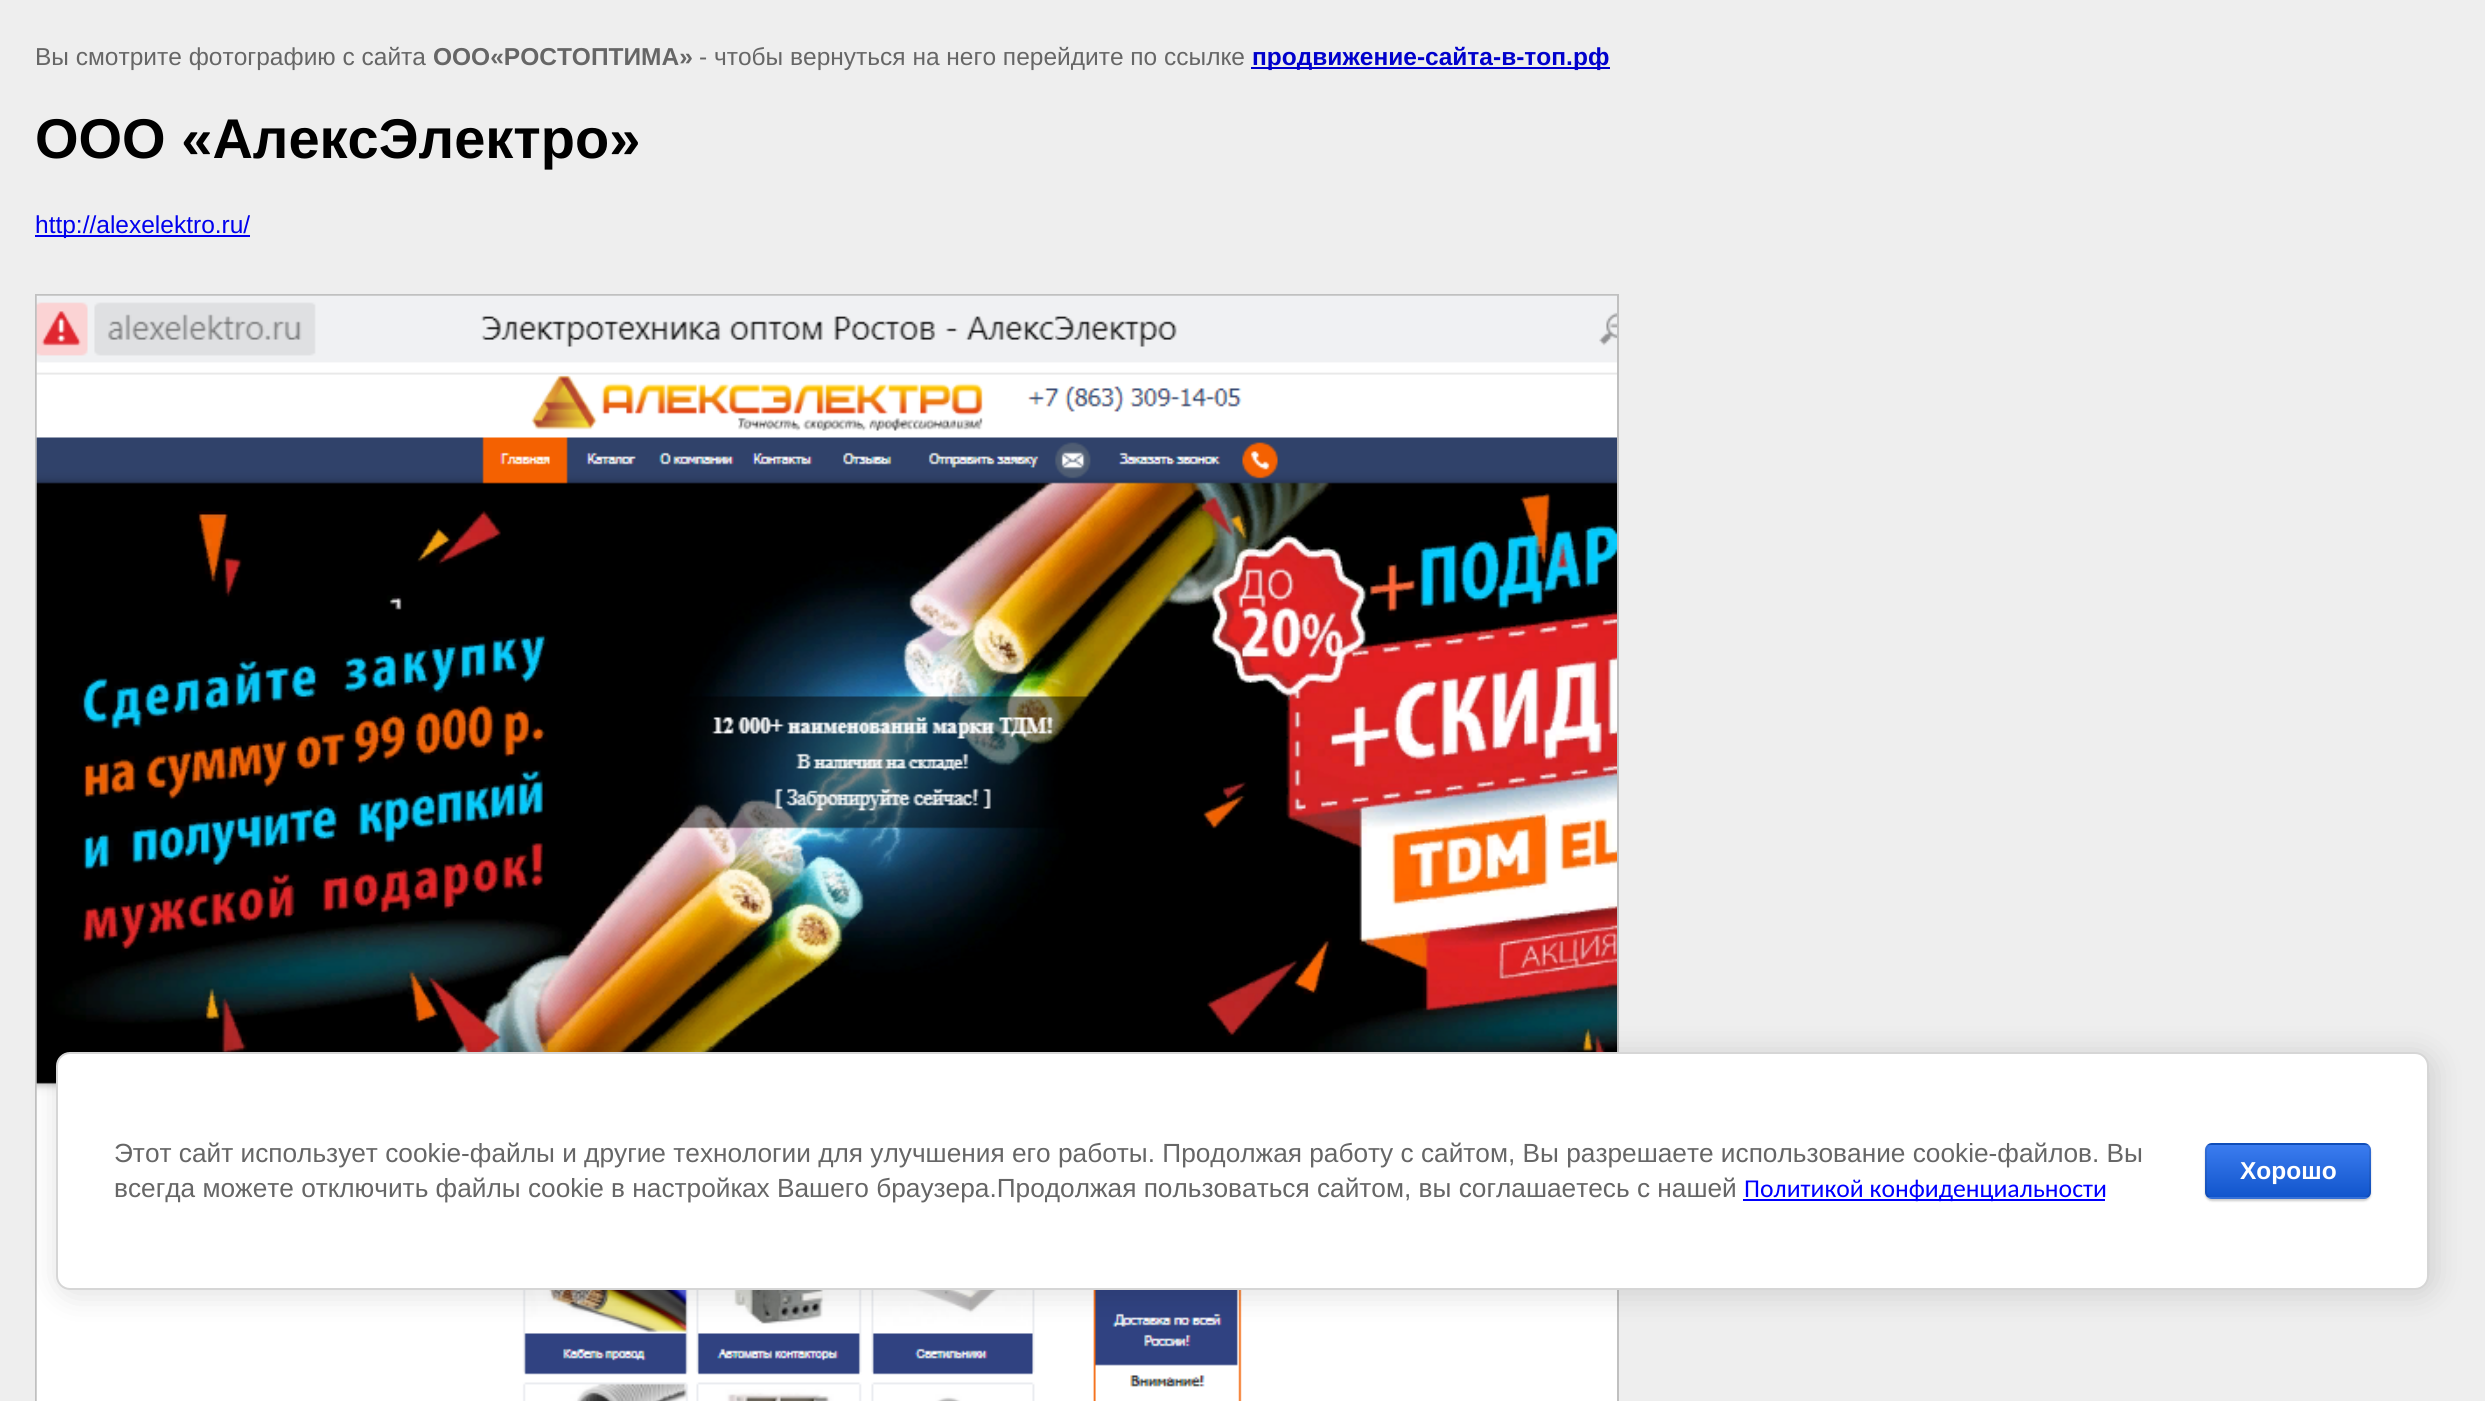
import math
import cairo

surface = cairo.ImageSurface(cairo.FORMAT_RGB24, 2485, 1401)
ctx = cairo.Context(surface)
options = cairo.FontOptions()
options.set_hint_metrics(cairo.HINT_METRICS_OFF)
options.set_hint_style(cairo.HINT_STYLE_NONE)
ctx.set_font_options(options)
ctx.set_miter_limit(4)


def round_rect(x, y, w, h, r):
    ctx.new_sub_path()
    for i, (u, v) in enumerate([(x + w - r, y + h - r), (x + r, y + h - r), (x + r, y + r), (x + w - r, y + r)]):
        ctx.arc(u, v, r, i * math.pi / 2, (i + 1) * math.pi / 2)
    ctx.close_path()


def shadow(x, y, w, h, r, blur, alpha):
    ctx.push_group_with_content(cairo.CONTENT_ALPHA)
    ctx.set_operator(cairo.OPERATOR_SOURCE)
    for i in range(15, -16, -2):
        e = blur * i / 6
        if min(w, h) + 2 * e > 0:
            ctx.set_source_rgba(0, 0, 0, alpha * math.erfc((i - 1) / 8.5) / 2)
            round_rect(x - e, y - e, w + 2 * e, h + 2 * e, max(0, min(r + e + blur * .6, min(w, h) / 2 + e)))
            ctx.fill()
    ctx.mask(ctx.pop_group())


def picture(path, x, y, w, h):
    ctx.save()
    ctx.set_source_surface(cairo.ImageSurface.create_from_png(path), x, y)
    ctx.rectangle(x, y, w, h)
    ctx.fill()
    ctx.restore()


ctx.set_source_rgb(0.933, 0.933, 0.933)
ctx.paint()
ctx.select_font_face("Liberation Sans")
ctx.set_font_size(24.5)
ctx.set_source_rgb(0.4, 0.4, 0.4)
ctx.move_to(35, 65)
ctx.show_text("Вы смотрите фотографию с сайта")
ctx.select_font_face("Liberation Sans", cairo.FONT_SLANT_NORMAL, cairo.FONT_WEIGHT_BOLD)
ctx.move_to(433, 65)
ctx.show_text("ООО«РОСТОПТИМА»")
ctx.select_font_face("Liberation Sans")
ctx.move_to(699, 65)
ctx.show_text("- чтобы вернуться на него перейдите по ссылке")
ctx.set_source_rgb(0, 0, 0.8)
ctx.rectangle(1251, 67, 359, 2)
ctx.fill()
ctx.select_font_face("Liberation Sans", cairo.FONT_SLANT_NORMAL, cairo.FONT_WEIGHT_BOLD)
ctx.move_to(1252, 65)
ctx.show_text("продвижение-сайта-в-топ.рф")
ctx.set_font_size(56)
ctx.set_source_rgb(0, 0, 0)
ctx.move_to(35, 158)
ctx.show_text("ООО «АлексЭлектро»")
ctx.set_source_rgb(0, 0, 0.933)
ctx.rectangle(35, 235, 215, 2)
ctx.fill()
ctx.select_font_face("Liberation Sans")
ctx.set_font_size(24.5)
ctx.move_to(35, 233)
ctx.show_text("http://alexelektro.ru/")
ctx.rectangle(36, 295, 1582, 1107)
ctx.set_source_rgb(0.753, 0.753, 0.753)
ctx.stroke()
picture("img1.png", 36, 295, 1581, 1106)
ctx.set_source_rgb(0, 0, 0)
shadow(60, 1055, 2373, 238, 14, 16, 0.14)
ctx.set_source_rgb(1, 1, 1)
round_rect(57, 1053, 2371, 236, 13)
ctx.fill_preserve()
ctx.set_source_rgb(0.839, 0.839, 0.839)
ctx.stroke()
ctx.set_font_size(26.25)
ctx.set_source_rgb(0.4, 0.4, 0.4)
ctx.move_to(114, 1162)
ctx.show_text("Этот сайт использует cookie-файлы и другие технологии для улучшения его работы. Продолжая работу с сайтом, Вы разрешаете использование cookie-файлов. Вы")
ctx.move_to(114, 1197)
ctx.show_text("всегда можете отключить файлы cookie в настройках Вашего браузера.Продолжая пользоваться сайтом, вы соглашаетесь с нашей")
ctx.set_source_rgb(0, 0, 1)
ctx.rectangle(1743, 1199, 362, 2)
ctx.fill()
ctx.select_font_face("Carlito")
ctx.set_font_size(25.7)
ctx.move_to(1744, 1197)
ctx.show_text("Политикой конфиденциальности")
ctx.set_source_rgb(0, 0, 0)
shadow(2205, 1145, 166, 56, 7, 1, 0.2)
ctx.save()
round_rect(2205, 1143, 166, 56, 7)
ctx.clip()
gradient = cairo.LinearGradient(2288, 1092, 2288, 1145)
gradient.add_color_stop_rgba(0, 0.231, 0.486, 0.937, 1)
gradient.add_color_stop_rgba(1, 0.067, 0.333, 0.8, 1)
ctx.set_source(gradient)
ctx.rectangle(2205, 1143, 166, 2)
ctx.fill()
gradient = cairo.LinearGradient(2288, 1145, 2288, 1197)
gradient.add_color_stop_rgba(0, 0.231, 0.486, 0.937, 1)
gradient.add_color_stop_rgba(1, 0.067, 0.333, 0.8, 1)
ctx.set_source(gradient)
ctx.rectangle(2205, 1145, 166, 52)
ctx.fill()
gradient = cairo.LinearGradient(2288, 1197, 2288, 1250)
gradient.add_color_stop_rgba(0, 0.231, 0.486, 0.937, 1)
gradient.add_color_stop_rgba(1, 0.067, 0.333, 0.8, 1)
ctx.set_source(gradient)
ctx.rectangle(2205, 1197, 166, 2)
ctx.fill()
ctx.restore()
round_rect(2206, 1144, 164, 54, 6)
ctx.set_source_rgba(0, 0, 0, 0.1)
ctx.stroke()
ctx.select_font_face("Liberation Sans", cairo.FONT_SLANT_NORMAL, cairo.FONT_WEIGHT_BOLD)
ctx.set_font_size(24.5)
ctx.set_source_rgb(1, 1, 1)
ctx.move_to(2240, 1179)
ctx.show_text("Хорошо")
surface.write_to_png("page.png")
